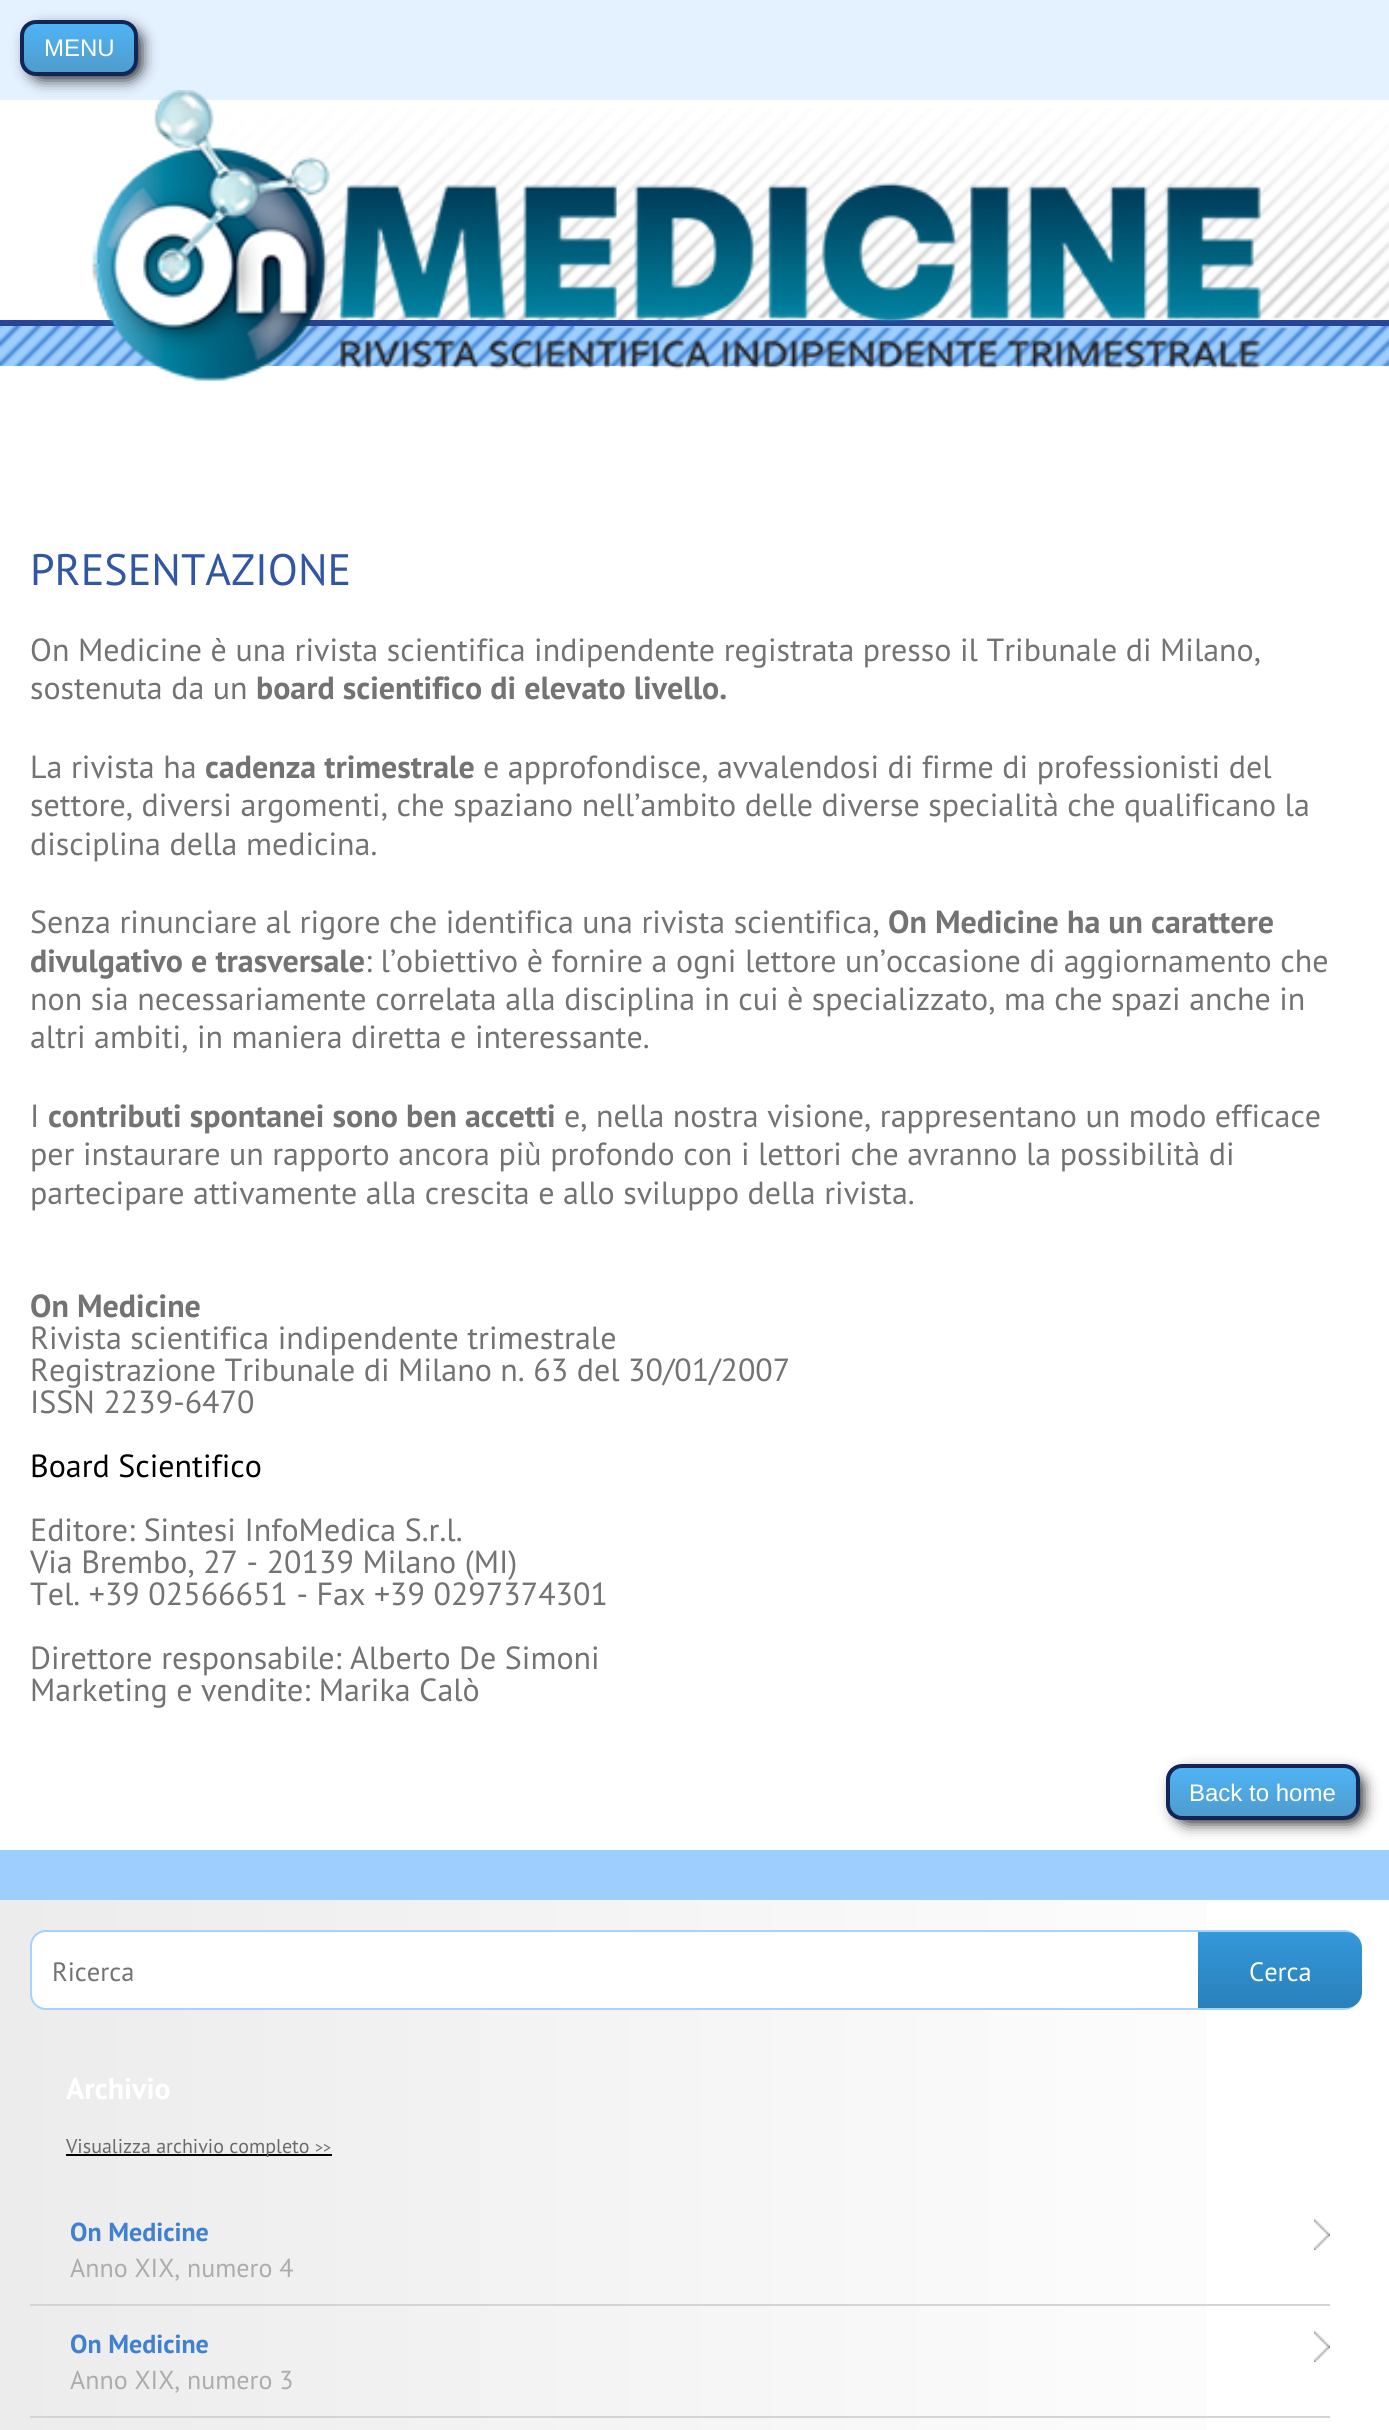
import math
import cairo

surface = cairo.ImageSurface(cairo.FORMAT_RGB24, 1389, 2430)
ctx = cairo.Context(surface)
options = cairo.FontOptions()
options.set_hint_metrics(cairo.HINT_METRICS_OFF)
options.set_hint_style(cairo.HINT_STYLE_NONE)
ctx.set_font_options(options)
ctx.set_miter_limit(4)


def round_rect(x, y, w, h, r):
    ctx.new_sub_path()
    for i, (u, v) in enumerate([(x + w - r, y + h - r), (x + r, y + h - r), (x + r, y + r), (x + w - r, y + r)]):
        ctx.arc(u, v, r, i * math.pi / 2, (i + 1) * math.pi / 2)
    ctx.close_path()


def shadow(x, y, w, h, r, blur, alpha):
    ctx.push_group_with_content(cairo.CONTENT_ALPHA)
    ctx.set_operator(cairo.OPERATOR_SOURCE)
    for i in range(15, -16, -2):
        e = blur * i / 6
        if min(w, h) + 2 * e > 0:
            ctx.set_source_rgba(0, 0, 0, alpha * math.erfc((i - 1) / 8.5) / 2)
            round_rect(x - e, y - e, w + 2 * e, h + 2 * e, max(0, min(r + e + blur * .6, min(w, h) / 2 + e)))
            ctx.fill()
    ctx.mask(ctx.pop_group())


def picture(path, x, y, w, h):
    ctx.save()
    ctx.set_source_surface(cairo.ImageSurface.create_from_png(path), x, y)
    ctx.rectangle(x, y, w, h)
    ctx.fill()
    ctx.restore()


ctx.set_source_rgb(1, 1, 1)
ctx.paint()
picture("img1.png", 213, 108, 1176, 212)
ctx.set_source_rgb(0.894, 0.945, 1)
ctx.rectangle(0, 0, 1389, 100)
ctx.fill()
ctx.set_source_rgb(0, 0, 0)
shadow(30, 30, 110, 48, 12, 8, 1)
ctx.save()
round_rect(20, 20, 118, 56, 16)
ctx.clip()
gradient = cairo.LinearGradient(79, 24, 79, 72)
gradient.add_color_stop_rgba(0, 0.31, 0.702, 0.961, 1)
gradient.add_color_stop_rgba(1, 0.31, 0.612, 0.8, 1)
ctx.set_source(gradient)
ctx.rectangle(20, 24, 118, 48)
ctx.fill()
ctx.restore()
round_rect(22, 22, 114, 52, 14)
ctx.set_source_rgb(0.071, 0.145, 0.337)
ctx.set_line_width(4)
ctx.stroke()
ctx.select_font_face("Liberation Sans")
ctx.set_font_size(24)
ctx.set_source_rgb(1, 1, 1)
ctx.move_to(44, 56)
ctx.show_text("MENU")
ctx.set_source_rgb(0.149, 0.267, 0.6)
ctx.rectangle(0, 320, 1389, 6)
ctx.fill()
ctx.set_source_rgb(0.616, 0.808, 0.996)
ctx.rectangle(0, 326, 1389, 1574)
ctx.fill()
picture("img3.png", 0, 326, 1389, 40)
ctx.set_source_rgb(1, 1, 1)
ctx.rectangle(0, 366, 1389, 1484)
ctx.fill()
picture("img2.png", 92, 90, 1169, 292)
ctx.select_font_face("PT Sans")
ctx.set_font_size(44)
ctx.set_source_rgb(0.196, 0.337, 0.651)
ctx.move_to(30, 585)
ctx.show_text("PRESENTAZIONE")
ctx.set_font_size(32)
ctx.set_source_rgb(0.451, 0.451, 0.451)
ctx.move_to(30, 661)
ctx.show_text("On Medicine è una rivista scientifica indipendente registrata presso il Tribunale di Milano,")
ctx.move_to(30, 699)
ctx.show_text("sostenuta da un")
ctx.select_font_face("PT Sans", cairo.FONT_SLANT_NORMAL, cairo.FONT_WEIGHT_BOLD)
ctx.move_to(256, 699)
ctx.show_text("board scientifico di elevato livello.")
ctx.select_font_face("PT Sans")
ctx.move_to(30, 778)
ctx.show_text("La rivista ha")
ctx.select_font_face("PT Sans", cairo.FONT_SLANT_NORMAL, cairo.FONT_WEIGHT_BOLD)
ctx.move_to(205, 778)
ctx.show_text("cadenza trimestrale")
ctx.select_font_face("PT Sans")
ctx.move_to(483, 778)
ctx.show_text("e approfondisce, avvalendosi di firme di professionisti del")
ctx.move_to(30, 816)
ctx.show_text("settore, diversi argomenti, che spaziano nell’ambito delle diverse specialità che qualificano la")
ctx.move_to(30, 855)
ctx.show_text("disciplina della medicina.")
ctx.move_to(30, 933)
ctx.show_text("Senza rinunciare al rigore che identifica una rivista scientifica,")
ctx.select_font_face("PT Sans", cairo.FONT_SLANT_NORMAL, cairo.FONT_WEIGHT_BOLD)
ctx.move_to(888, 933)
ctx.show_text("On Medicine ha un carattere")
ctx.move_to(30, 972)
ctx.show_text("divulgativo e trasversale")
ctx.select_font_face("PT Sans")
ctx.move_to(365, 972)
ctx.show_text(": l’obiettivo è fornire a ogni lettore un’occasione di aggiornamento che")
ctx.move_to(30, 1010)
ctx.show_text("non sia necessariamente correlata alla disciplina in cui è specializzato, ma che spazi anche in")
ctx.move_to(30, 1048)
ctx.show_text("altri ambiti, in maniera diretta e interessante.")
ctx.move_to(30, 1127)
ctx.show_text("I")
ctx.select_font_face("PT Sans", cairo.FONT_SLANT_NORMAL, cairo.FONT_WEIGHT_BOLD)
ctx.move_to(48, 1127)
ctx.show_text("contributi spontanei sono ben accetti")
ctx.select_font_face("PT Sans")
ctx.move_to(564, 1127)
ctx.show_text("e, nella nostra visione, rappresentano un modo efficace")
ctx.move_to(30, 1165)
ctx.show_text("per instaurare un rapporto ancora più profondo con i lettori che avranno la possibilità di")
ctx.move_to(30, 1204)
ctx.show_text("partecipare attivamente alla crescita e allo sviluppo della rivista.")
ctx.select_font_face("PT Sans", cairo.FONT_SLANT_NORMAL, cairo.FONT_WEIGHT_BOLD)
ctx.move_to(30, 1317)
ctx.show_text("On Medicine")
ctx.select_font_face("PT Sans")
ctx.move_to(30, 1349)
ctx.show_text("Rivista scientifica indipendente trimestrale")
ctx.move_to(30, 1381)
ctx.show_text("Registrazione Tribunale di Milano n. 63 del 30/01/2007")
ctx.move_to(30, 1413)
ctx.show_text("ISSN 2239-6470")
ctx.set_source_rgb(0, 0, 0)
ctx.move_to(30, 1477)
ctx.show_text("Board Scientifico")
ctx.set_source_rgb(0.451, 0.451, 0.451)
ctx.move_to(30, 1541)
ctx.show_text("Editore: Sintesi InfoMedica S.r.l.")
ctx.move_to(30, 1573)
ctx.show_text("Via Brembo, 27 - 20139 Milano (MI)")
ctx.move_to(30, 1605)
ctx.show_text("Tel. +39 02566651 - Fax +39 0297374301")
ctx.move_to(30, 1669)
ctx.show_text("Direttore responsabile: Alberto De Simoni")
ctx.move_to(30, 1701)
ctx.show_text("Marketing e vendite: Marika Calò")
ctx.set_source_rgb(0, 0, 0)
shadow(1176, 1774, 186, 48, 12, 8, 1)
ctx.save()
round_rect(1166, 1764, 194, 56, 16)
ctx.clip()
gradient = cairo.LinearGradient(1263, 1768, 1263, 1816)
gradient.add_color_stop_rgba(0, 0.31, 0.702, 0.961, 1)
gradient.add_color_stop_rgba(1, 0.31, 0.612, 0.8, 1)
ctx.set_source(gradient)
ctx.rectangle(1166, 1768, 194, 48)
ctx.fill()
ctx.restore()
round_rect(1168, 1766, 190, 52, 14)
ctx.set_source_rgb(0.071, 0.145, 0.337)
ctx.stroke()
ctx.select_font_face("Liberation Sans")
ctx.set_font_size(24)
ctx.set_source_rgb(1, 1, 1)
ctx.move_to(1189, 1801)
ctx.show_text("Back to home")
gradient = cairo.LinearGradient(0, 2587, 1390, 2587)
gradient.add_color_stop_rgba(0, 0.925, 0.925, 0.925, 1)
gradient.add_color_stop_rgba(1, 1, 1, 1, 1)
ctx.set_source(gradient)
ctx.rectangle(0, 1900, 1207, 530)
ctx.fill()
ctx.set_source_rgb(1, 1, 1)
round_rect(31, 1931, 1328, 78, 15)
ctx.fill_preserve()
ctx.set_source_rgb(0.647, 0.824, 1)
ctx.set_line_width(2)
ctx.stroke()
ctx.select_font_face("PT Sans")
ctx.set_font_size(26.5)
ctx.set_source_rgb(0.451, 0.451, 0.451)
ctx.move_to(52, 1981)
ctx.show_text("Ricerca")
gradient = cairo.LinearGradient(1280, 1932, 1280, 2008)
gradient.add_color_stop_rgba(0, 0.204, 0.596, 0.859, 1)
gradient.add_color_stop_rgba(1, 0.161, 0.502, 0.725, 1)
ctx.set_source(gradient)
ctx.new_path()
ctx.move_to(1198, 1932)
ctx.line_to(1346, 1932)
ctx.curve_to(1355, 1932, 1362, 1939, 1362, 1948)
ctx.line_to(1362, 1992)
ctx.curve_to(1362, 2001, 1355, 2008, 1346, 2008)
ctx.line_to(1198, 2008)
ctx.close_path()
ctx.fill()
ctx.set_source_rgb(1, 1, 1)
ctx.move_to(1249, 1981)
ctx.show_text("Cerca")
ctx.select_font_face("PT Sans", cairo.FONT_SLANT_NORMAL, cairo.FONT_WEIGHT_BOLD)
ctx.set_font_size(30)
ctx.move_to(66, 2099)
ctx.show_text("Archivio")
ctx.set_source_rgb(0, 0, 0)
ctx.rectangle(66, 2154, 266, 2)
ctx.fill()
ctx.select_font_face("PT Sans")
ctx.set_font_size(20)
ctx.set_source_rgb(0.42, 0.42, 0.42)
ctx.move_to(66, 2153)
ctx.show_text("Visualizza archivio completo")
ctx.set_font_size(16)
ctx.move_to(315, 2153)
ctx.show_text(">>")
ctx.set_source_rgb(0.831, 0.831, 0.831)
ctx.rectangle(30, 2304, 1300, 2)
ctx.fill()
ctx.select_font_face("PT Sans", cairo.FONT_SLANT_NORMAL, cairo.FONT_WEIGHT_BOLD)
ctx.set_font_size(26)
ctx.set_source_rgb(0.255, 0.502, 0.812)
ctx.move_to(70, 2241)
ctx.show_text("On Medicine")
ctx.select_font_face("PT Sans")
ctx.set_source_rgb(0.675, 0.675, 0.675)
ctx.move_to(70, 2277)
ctx.show_text("Anno XIX, numero 4")
picture("img4.png", 1314, 2218, 16, 32)
ctx.set_source_rgb(0.831, 0.831, 0.831)
ctx.rectangle(30, 2416, 1300, 2)
ctx.fill()
ctx.select_font_face("PT Sans", cairo.FONT_SLANT_NORMAL, cairo.FONT_WEIGHT_BOLD)
ctx.set_source_rgb(0.255, 0.502, 0.812)
ctx.move_to(70, 2353)
ctx.show_text("On Medicine")
ctx.select_font_face("PT Sans")
ctx.set_source_rgb(0.675, 0.675, 0.675)
ctx.move_to(70, 2389)
ctx.show_text("Anno XIX, numero 3")
picture("img4.png", 1314, 2330, 16, 32)
surface.write_to_png("page.png")
